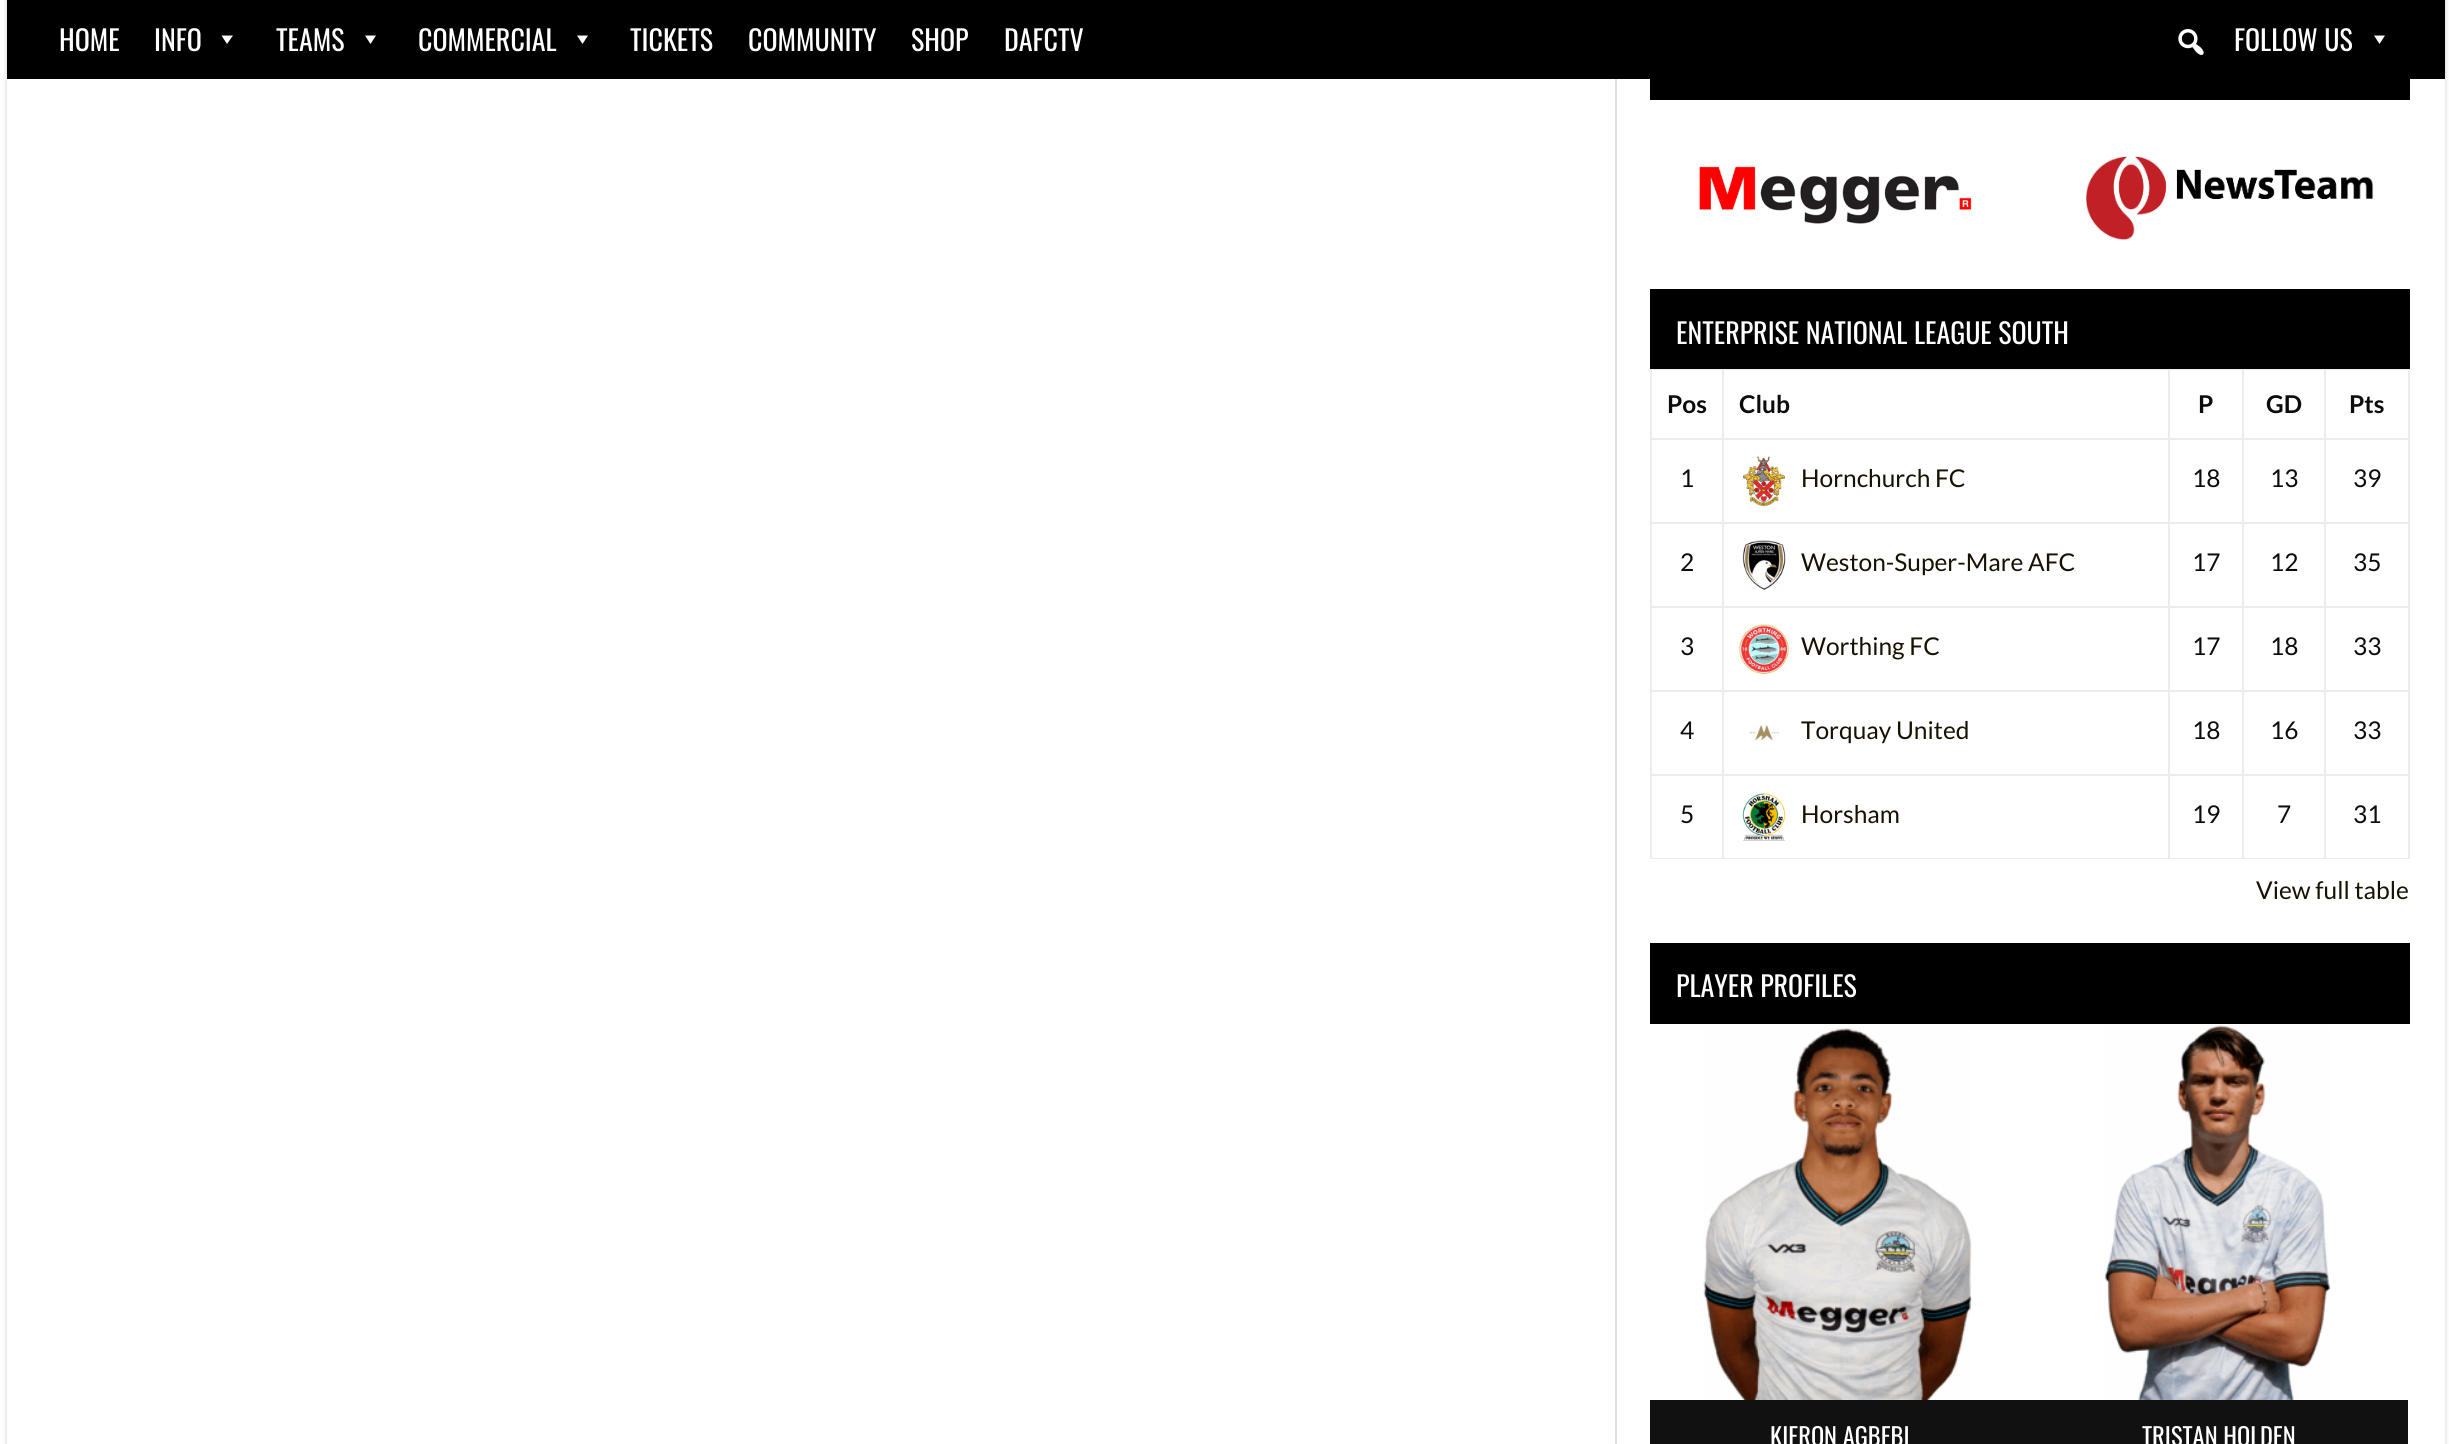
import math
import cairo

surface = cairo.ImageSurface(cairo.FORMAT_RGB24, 2449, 1444)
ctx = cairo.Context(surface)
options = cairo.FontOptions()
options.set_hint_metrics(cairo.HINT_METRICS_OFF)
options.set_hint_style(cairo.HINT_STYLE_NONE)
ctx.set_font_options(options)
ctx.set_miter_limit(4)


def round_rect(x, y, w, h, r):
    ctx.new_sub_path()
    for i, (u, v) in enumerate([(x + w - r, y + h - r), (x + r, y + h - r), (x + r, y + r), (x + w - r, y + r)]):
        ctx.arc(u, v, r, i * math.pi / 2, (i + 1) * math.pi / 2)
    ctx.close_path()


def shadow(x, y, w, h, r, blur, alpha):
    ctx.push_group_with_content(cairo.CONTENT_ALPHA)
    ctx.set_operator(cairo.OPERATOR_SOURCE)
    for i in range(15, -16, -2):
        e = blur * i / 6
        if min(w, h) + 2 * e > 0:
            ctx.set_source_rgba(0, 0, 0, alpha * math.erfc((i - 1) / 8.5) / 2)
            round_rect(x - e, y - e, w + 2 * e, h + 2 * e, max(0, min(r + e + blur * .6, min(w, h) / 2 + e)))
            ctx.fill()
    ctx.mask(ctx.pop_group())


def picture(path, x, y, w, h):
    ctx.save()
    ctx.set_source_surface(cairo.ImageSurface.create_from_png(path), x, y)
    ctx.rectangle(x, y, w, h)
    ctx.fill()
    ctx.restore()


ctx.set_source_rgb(1, 1, 1)
ctx.paint()
ctx.set_source_rgb(0, 0, 0)
shadow(7, -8, 2438, 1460, 0, 2.5, 0.2)
ctx.set_source_rgb(0, 0, 0)
ctx.rectangle(7, 0, 2438, 79)
ctx.fill()
ctx.select_font_face("Oswald")
ctx.set_font_size(28)
ctx.set_source_rgb(1, 1, 1)
ctx.move_to(59, 51)
ctx.show_text("HOME")
ctx.move_to(154, 51)
ctx.show_text("INFO")
ctx.new_path()
ctx.move_to(233, 35.5)
ctx.line_to(227, 44)
ctx.line_to(221.5, 35.5)
ctx.close_path()
ctx.fill()
ctx.move_to(276, 51)
ctx.show_text("TEAMS")
ctx.new_path()
ctx.move_to(376, 35.5)
ctx.line_to(370.5, 44)
ctx.line_to(365, 35.5)
ctx.close_path()
ctx.fill()
ctx.move_to(418, 51)
ctx.show_text("COMMERCIAL")
ctx.new_path()
ctx.move_to(588, 35.5)
ctx.line_to(582.5, 44)
ctx.line_to(577, 35.5)
ctx.close_path()
ctx.fill()
ctx.move_to(630, 51)
ctx.show_text("TICKETS")
ctx.move_to(748, 51)
ctx.show_text("COMMUNITY")
ctx.move_to(911, 51)
ctx.show_text("SHOP")
ctx.move_to(1004, 51)
ctx.show_text("DAFCTV")
picture("img1.png", 2178, 29, 26, 26)
ctx.move_to(2234, 51)
ctx.show_text("FOLLOW US")
ctx.new_path()
ctx.move_to(2385, 35.5)
ctx.line_to(2379.5, 44)
ctx.line_to(2374, 35.5)
ctx.close_path()
ctx.fill()
ctx.rectangle(7, 79, 2438, 1365)
ctx.fill()
ctx.set_source_rgb(0.878, 0.878, 0.878)
ctx.rectangle(1615, 79, 2, 1365)
ctx.fill()
ctx.set_source_rgb(0, 0, 0)
ctx.rectangle(1650, 79, 760, 21)
ctx.fill()
picture("img2.png", 1699, 166, 273, 58)
picture("img3.png", 2086, 156, 288, 84)
ctx.set_source_rgb(0.922, 0.922, 0.922)
ctx.rectangle(1650, 369, 760, 1)
ctx.fill()
ctx.rectangle(2408, 368, 2, 491)
ctx.fill()
ctx.rectangle(1650, 858, 760, 1)
ctx.fill()
ctx.rectangle(1650, 368, 2, 491)
ctx.fill()
ctx.rectangle(2324, 438, 86, 2)
ctx.fill()
ctx.rectangle(2324, 522, 86, 2)
ctx.fill()
ctx.rectangle(2324, 606, 86, 2)
ctx.fill()
ctx.rectangle(2324, 690, 86, 2)
ctx.fill()
ctx.rectangle(2324, 774, 86, 2)
ctx.fill()
ctx.rectangle(2324, 774, 2, 85)
ctx.fill()
ctx.rectangle(2242, 774, 84, 2)
ctx.fill()
ctx.rectangle(2324, 690, 2, 85)
ctx.fill()
ctx.rectangle(2242, 690, 84, 2)
ctx.fill()
ctx.rectangle(2324, 606, 2, 85)
ctx.fill()
ctx.rectangle(2242, 606, 84, 2)
ctx.fill()
ctx.rectangle(2324, 522, 2, 85)
ctx.fill()
ctx.rectangle(2242, 522, 84, 2)
ctx.fill()
ctx.rectangle(2324, 438, 2, 85)
ctx.fill()
ctx.rectangle(2242, 438, 84, 2)
ctx.fill()
ctx.rectangle(2242, 774, 2, 85)
ctx.fill()
ctx.rectangle(2168, 774, 76, 2)
ctx.fill()
ctx.rectangle(2242, 690, 2, 85)
ctx.fill()
ctx.rectangle(2168, 690, 76, 2)
ctx.fill()
ctx.rectangle(2242, 606, 2, 85)
ctx.fill()
ctx.rectangle(2168, 606, 76, 2)
ctx.fill()
ctx.rectangle(2242, 522, 2, 85)
ctx.fill()
ctx.rectangle(2168, 522, 76, 2)
ctx.fill()
ctx.rectangle(2242, 438, 2, 85)
ctx.fill()
ctx.rectangle(2168, 438, 76, 2)
ctx.fill()
ctx.rectangle(2168, 774, 2, 85)
ctx.fill()
ctx.rectangle(1722, 774, 448, 2)
ctx.fill()
ctx.rectangle(2168, 690, 2, 85)
ctx.fill()
ctx.rectangle(1722, 690, 448, 2)
ctx.fill()
ctx.rectangle(2168, 606, 2, 85)
ctx.fill()
ctx.rectangle(1722, 606, 448, 2)
ctx.fill()
ctx.rectangle(2168, 522, 2, 85)
ctx.fill()
ctx.rectangle(1722, 522, 448, 2)
ctx.fill()
ctx.rectangle(2168, 438, 2, 85)
ctx.fill()
ctx.rectangle(1722, 438, 448, 2)
ctx.fill()
ctx.rectangle(1722, 774, 2, 85)
ctx.fill()
ctx.rectangle(1650, 774, 74, 2)
ctx.fill()
ctx.rectangle(1722, 690, 2, 85)
ctx.fill()
ctx.rectangle(1650, 690, 74, 2)
ctx.fill()
ctx.rectangle(1722, 606, 2, 85)
ctx.fill()
ctx.rectangle(1650, 606, 74, 2)
ctx.fill()
ctx.rectangle(1722, 522, 2, 85)
ctx.fill()
ctx.rectangle(1650, 522, 74, 2)
ctx.fill()
ctx.rectangle(1722, 438, 2, 85)
ctx.fill()
ctx.rectangle(1650, 438, 74, 2)
ctx.fill()
ctx.rectangle(1722, 368, 2, 71)
ctx.fill()
ctx.rectangle(2168, 368, 2, 71)
ctx.fill()
ctx.rectangle(2242, 368, 2, 71)
ctx.fill()
ctx.rectangle(2324, 368, 2, 71)
ctx.fill()
ctx.set_source_rgb(0, 0, 0)
ctx.rectangle(1650, 289, 760, 80)
ctx.fill()
ctx.set_source_rgb(1, 1, 1)
ctx.move_to(1676, 344)
ctx.show_text("ENTERPRISE NATIONAL LEAGUE SOUTH")
ctx.select_font_face("Lato", cairo.FONT_SLANT_NORMAL, cairo.FONT_WEIGHT_BOLD)
ctx.set_font_size(24.5)
ctx.set_source_rgb(0.047, 0.047, 0.047)
ctx.move_to(1667, 413)
ctx.show_text("Pos")
ctx.move_to(1739, 413)
ctx.show_text("Club")
ctx.move_to(2198, 413)
ctx.show_text("P")
ctx.move_to(2266, 413)
ctx.show_text("GD")
ctx.move_to(2349, 413)
ctx.show_text("Pts")
ctx.select_font_face("Lato")
ctx.move_to(1680, 487)
ctx.show_text("1")
picture("img4.png", 1743, 456, 42, 50)
ctx.set_source_rgb(0.094, 0.067, 0.004)
ctx.move_to(1801, 487)
ctx.show_text("Hornchurch FC")
ctx.set_source_rgb(0.047, 0.047, 0.047)
ctx.move_to(2192, 487)
ctx.show_text("18")
ctx.move_to(2270, 487)
ctx.show_text("13")
ctx.move_to(2353, 487)
ctx.show_text("39")
ctx.move_to(1680, 571)
ctx.show_text("2")
picture("img5.png", 1742, 540, 44, 50)
ctx.set_source_rgb(0.094, 0.067, 0.004)
ctx.move_to(1801, 571)
ctx.show_text("Weston-Super-Mare AFC")
ctx.set_source_rgb(0.047, 0.047, 0.047)
ctx.move_to(2192, 571)
ctx.show_text("17")
ctx.move_to(2270, 571)
ctx.show_text("12")
ctx.move_to(2353, 571)
ctx.show_text("35")
ctx.move_to(1680, 655)
ctx.show_text("3")
picture("img6.png", 1739, 624, 50, 50)
ctx.set_source_rgb(0.094, 0.067, 0.004)
ctx.move_to(1801, 655)
ctx.show_text("Worthing FC")
ctx.set_source_rgb(0.047, 0.047, 0.047)
ctx.move_to(2192, 655)
ctx.show_text("17")
ctx.move_to(2270, 655)
ctx.show_text("18")
ctx.move_to(2353, 655)
ctx.show_text("33")
ctx.move_to(1680, 739)
ctx.show_text("4")
picture("img7.png", 1749, 725, 30, 16)
ctx.set_source_rgb(0.094, 0.067, 0.004)
ctx.move_to(1801, 739)
ctx.show_text("Torquay United")
ctx.set_source_rgb(0.047, 0.047, 0.047)
ctx.move_to(2192, 739)
ctx.show_text("18")
ctx.move_to(2270, 739)
ctx.show_text("16")
ctx.move_to(2353, 739)
ctx.show_text("33")
ctx.move_to(1680, 823)
ctx.show_text("5")
picture("img8.png", 1742, 793, 44, 48)
ctx.set_source_rgb(0.094, 0.067, 0.004)
ctx.move_to(1801, 823)
ctx.show_text("Horsham")
ctx.set_source_rgb(0.047, 0.047, 0.047)
ctx.move_to(2192, 823)
ctx.show_text("19")
ctx.move_to(2277, 823)
ctx.show_text("7")
ctx.move_to(2353, 823)
ctx.show_text("31")
ctx.set_source_rgb(0.094, 0.067, 0.004)
ctx.move_to(2256, 899)
ctx.show_text("View full table")
ctx.set_source_rgb(0, 0, 0)
ctx.rectangle(1650, 943, 760, 81)
ctx.fill()
ctx.select_font_face("Oswald")
ctx.set_font_size(28)
ctx.set_source_rgb(1, 1, 1)
ctx.move_to(1676, 997)
ctx.show_text("PLAYER PROFILES")
picture("img9.png", 1703, 1028, 269, 372)
ctx.set_source_rgb(0.067, 0.067, 0.067)
ctx.rectangle(1650, 1400, 758, 44)
ctx.fill()
ctx.set_font_size(24.5)
ctx.set_source_rgb(1, 1, 1)
ctx.move_to(1770, 1446)
ctx.show_text("KIERON AGBEBI")
picture("img10.png", 2104, 1025, 227, 375)
ctx.move_to(2142, 1446)
ctx.show_text("TRISTAN HOLDEN")
surface.write_to_png("page.png")
